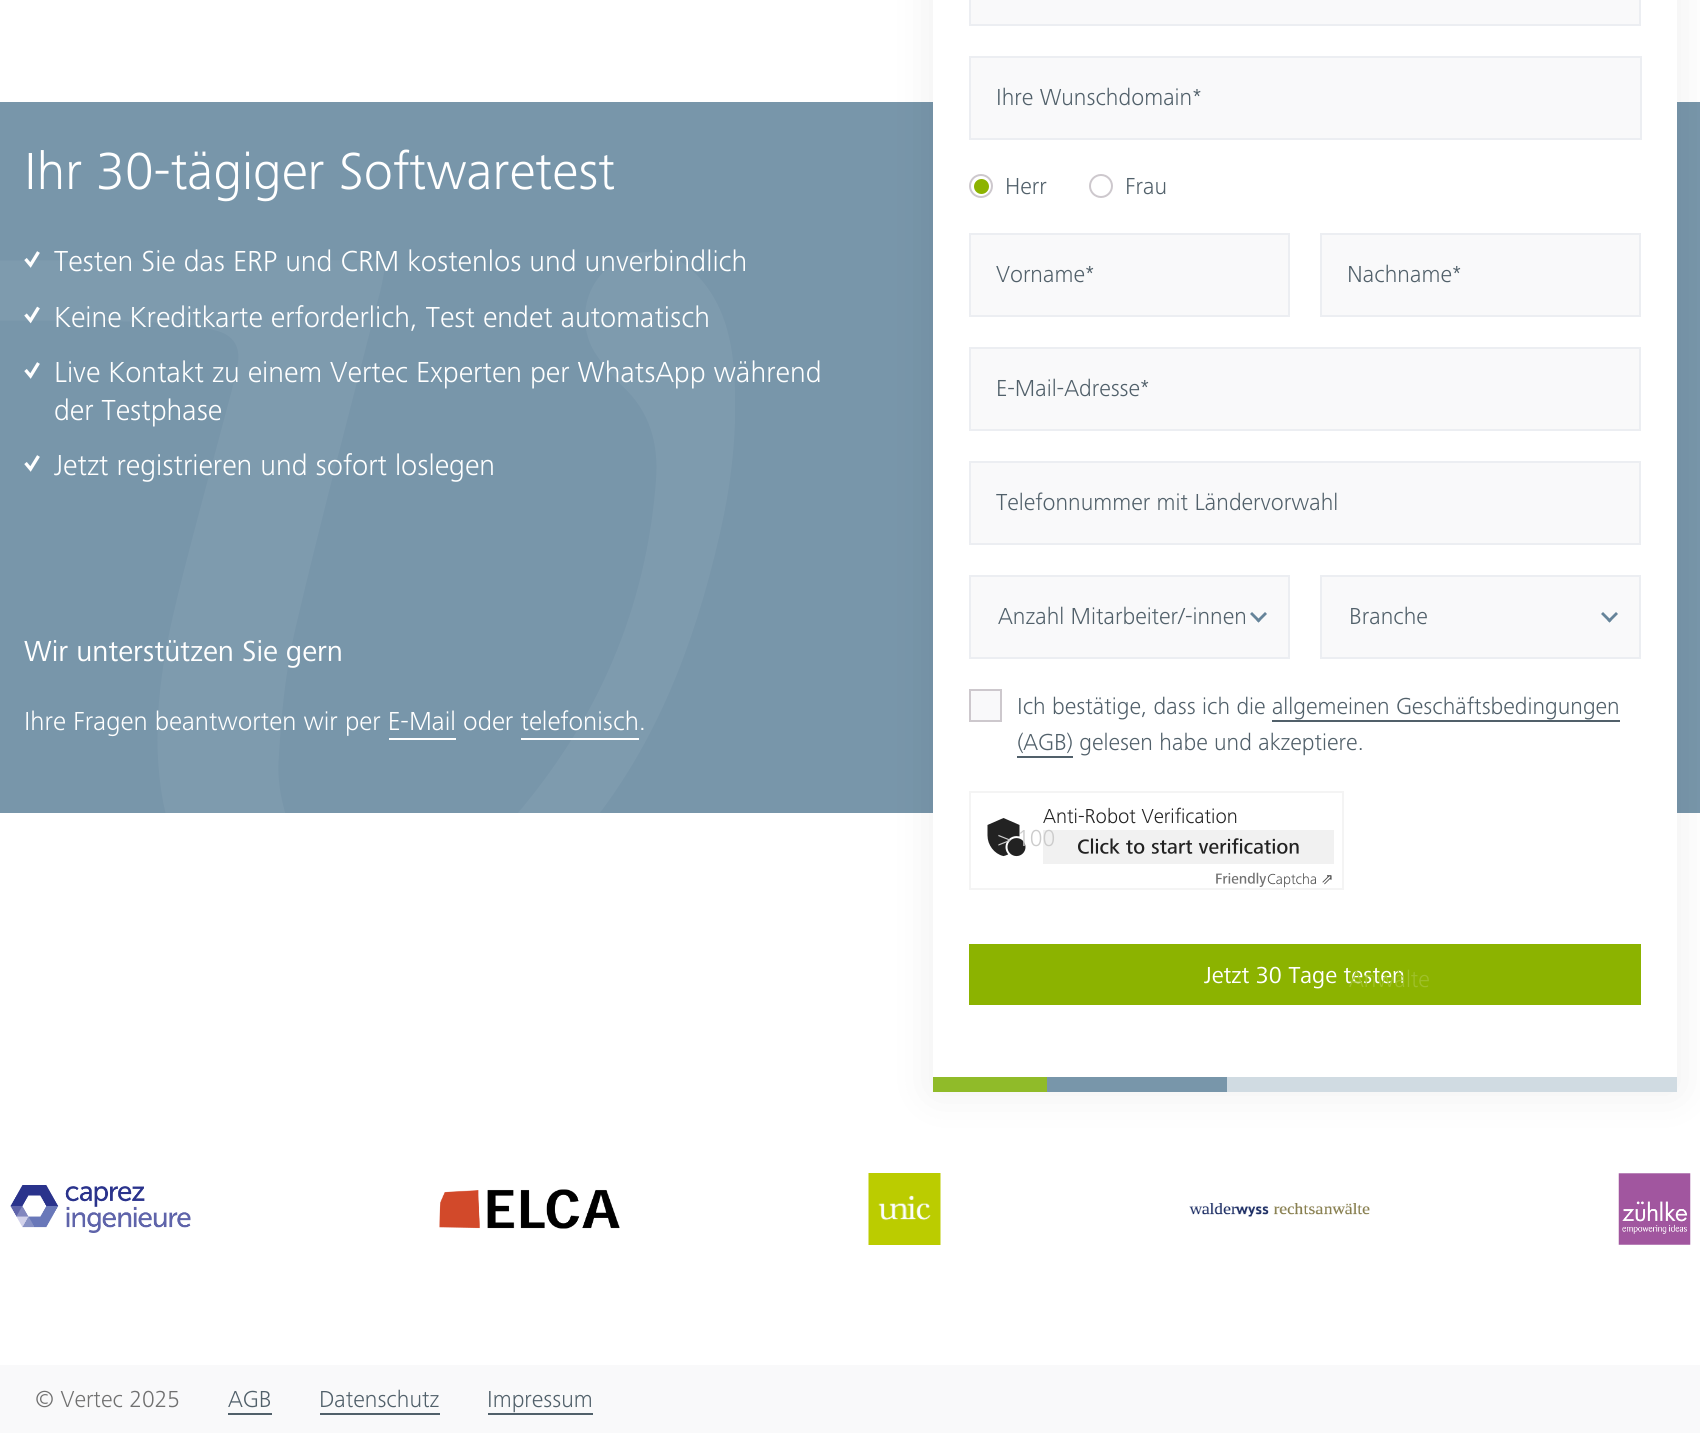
import math
import cairo

surface = cairo.ImageSurface(cairo.FORMAT_RGB24, 1700, 1433)
ctx = cairo.Context(surface)
options = cairo.FontOptions()
options.set_hint_metrics(cairo.HINT_METRICS_OFF)
options.set_hint_style(cairo.HINT_STYLE_NONE)
ctx.set_font_options(options)
ctx.set_miter_limit(4)


def round_rect(x, y, w, h, r):
    ctx.new_sub_path()
    for i, (u, v) in enumerate([(x + w - r, y + h - r), (x + r, y + h - r), (x + r, y + r), (x + w - r, y + r)]):
        ctx.arc(u, v, r, i * math.pi / 2, (i + 1) * math.pi / 2)
    ctx.close_path()


def shadow(x, y, w, h, r, blur, alpha):
    ctx.push_group_with_content(cairo.CONTENT_ALPHA)
    ctx.set_operator(cairo.OPERATOR_SOURCE)
    for i in range(15, -16, -2):
        e = blur * i / 6
        if min(w, h) + 2 * e > 0:
            ctx.set_source_rgba(0, 0, 0, alpha * math.erfc((i - 1) / 8.5) / 2)
            round_rect(x - e, y - e, w + 2 * e, h + 2 * e, max(0, min(r + e + blur * .6, min(w, h) / 2 + e)))
            ctx.fill()
    ctx.mask(ctx.pop_group())


def picture(path, x, y, w, h):
    ctx.save()
    ctx.set_source_surface(cairo.ImageSurface.create_from_png(path), x, y)
    ctx.rectangle(x, y, w, h)
    ctx.fill()
    ctx.restore()


ctx.set_source_rgb(0.973, 0.973, 0.98)
ctx.paint()
ctx.set_source_rgb(1, 1, 1)
ctx.rectangle(0, 0, 1700, 102)
ctx.fill()
ctx.rectangle(0, 813, 1700, 552)
ctx.fill()
ctx.set_source_rgb(0.471, 0.588, 0.667)
ctx.rectangle(0, 102, 1700, 711)
ctx.fill()
picture("img1.png", 0, 252, 735, 561)
ctx.select_font_face("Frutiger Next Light")
ctx.set_font_size(54)
ctx.set_source_rgb(1, 1, 1)
ctx.move_to(24, 189)
ctx.show_text("Ihr 30-tägiger Softwaretest")
ctx.new_path()
ctx.move_to(25.5, 259)
ctx.line_to(30.5, 265)
ctx.line_to(38.5, 252)
ctx.set_line_width(3.3)
ctx.stroke()
ctx.set_font_size(30)
ctx.move_to(54, 271)
ctx.show_text("Testen Sie das ERP und CRM kostenlos und unverbindlich")
ctx.new_path()
ctx.move_to(25.5, 314.5)
ctx.line_to(30.5, 320.5)
ctx.line_to(38.5, 307.5)
ctx.stroke()
ctx.move_to(54, 327)
ctx.show_text("Keine Kreditkarte erforderlich, Test endet automatisch")
ctx.new_path()
ctx.move_to(25.5, 370)
ctx.line_to(30.5, 376)
ctx.line_to(38.5, 363)
ctx.stroke()
ctx.move_to(54, 382)
ctx.show_text("Live Kontakt zu einem Vertec Experten per WhatsApp während")
ctx.move_to(54, 420)
ctx.show_text("der Testphase")
ctx.new_path()
ctx.move_to(25.5, 463)
ctx.line_to(30.5, 469)
ctx.line_to(38.5, 456)
ctx.stroke()
ctx.move_to(54, 475)
ctx.show_text("Jetzt registrieren und sofort loslegen")
ctx.set_source_rgb(0, 0, 0)
shadow(933, -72, 744, 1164, 0, 24, 0.07)
ctx.set_source_rgb(1, 1, 1)
ctx.rectangle(933, 0, 744, 1077)
ctx.fill()
ctx.set_source_rgb(0.973, 0.973, 0.98)
ctx.rectangle(970, -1, 670, 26)
ctx.fill_preserve()
ctx.set_source_rgb(0.925, 0.933, 0.949)
ctx.set_line_width(2)
ctx.stroke()
ctx.set_source_rgb(0.973, 0.973, 0.98)
ctx.rectangle(971, 58, 669, 80)
ctx.fill()
ctx.set_source_rgb(0.925, 0.933, 0.949)
ctx.rectangle(969, 56, 672, 2)
ctx.fill()
ctx.rectangle(969, 138, 468, 2)
ctx.fill()
ctx.rectangle(969, 56, 2, 84)
ctx.fill()
ctx.set_font_size(24)
ctx.set_source_rgb(0.318, 0.376, 0.416)
ctx.move_to(996, 105)
ctx.show_text("Ihre Wunschdomain*")
ctx.set_source_rgb(0.925, 0.933, 0.949)
ctx.rectangle(1640, 56, 2, 84)
ctx.fill()
ctx.rectangle(1437, 138, 204, 2)
ctx.fill()
ctx.arc(981, 186, 11, 0, 2 * math.pi)
ctx.set_source_rgb(0.804, 0.784, 0.804)
ctx.stroke()
ctx.set_source_rgb(0.318, 0.376, 0.416)
ctx.move_to(1005, 194)
ctx.show_text("Herr")
ctx.set_source_rgb(0.549, 0.702, 0)
ctx.new_path()
ctx.arc(981.5, 186.5, 7.5, 0, 2 * math.pi)
ctx.fill()
ctx.arc(1101, 186, 11, 0, 2 * math.pi)
ctx.set_source_rgb(0.804, 0.784, 0.804)
ctx.stroke()
ctx.set_source_rgb(0.318, 0.376, 0.416)
ctx.move_to(1125, 194)
ctx.show_text("Frau")
ctx.set_source_rgb(0.973, 0.973, 0.98)
ctx.rectangle(970, 234, 319, 82)
ctx.fill_preserve()
ctx.set_source_rgb(0.925, 0.933, 0.949)
ctx.stroke()
ctx.set_source_rgb(0.318, 0.376, 0.416)
ctx.move_to(996, 282)
ctx.show_text("Vorname*")
ctx.set_source_rgb(0.973, 0.973, 0.98)
ctx.rectangle(1321, 234, 319, 82)
ctx.fill_preserve()
ctx.set_source_rgb(0.925, 0.933, 0.949)
ctx.stroke()
ctx.set_source_rgb(0.318, 0.376, 0.416)
ctx.move_to(1347, 282)
ctx.show_text("Nachname*")
ctx.set_source_rgb(0.973, 0.973, 0.98)
ctx.rectangle(970, 348, 670, 82)
ctx.fill_preserve()
ctx.set_source_rgb(0.925, 0.933, 0.949)
ctx.stroke()
ctx.set_source_rgb(0.318, 0.376, 0.416)
ctx.move_to(996, 396)
ctx.show_text("E-Mail-Adresse*")
ctx.set_source_rgb(0.973, 0.973, 0.98)
ctx.rectangle(970, 462, 670, 82)
ctx.fill_preserve()
ctx.set_source_rgb(0.925, 0.933, 0.949)
ctx.stroke()
ctx.set_source_rgb(0.318, 0.376, 0.416)
ctx.move_to(996, 510)
ctx.show_text("Telefonnummer mit Ländervorwahl")
ctx.set_source_rgb(0.973, 0.973, 0.98)
ctx.rectangle(970, 576, 319, 82)
ctx.fill_preserve()
ctx.set_source_rgb(0.925, 0.933, 0.949)
ctx.stroke()
ctx.set_source_rgb(0.318, 0.376, 0.416)
ctx.move_to(998, 624)
ctx.show_text("Anzahl Mitarbeiter/-innen")
ctx.set_source_rgb(0.4, 0.518, 0.604)
ctx.new_path()
ctx.move_to(1267, 614)
ctx.line_to(1258.5, 622.5)
ctx.line_to(1256.5, 620.5)
ctx.line_to(1265, 612)
ctx.close_path()
ctx.fill()
ctx.new_path()
ctx.move_to(1260.5, 620.5)
ctx.line_to(1258.5, 622.5)
ctx.line_to(1250, 614)
ctx.line_to(1252, 612)
ctx.close_path()
ctx.fill()
ctx.rectangle(970, 792, 373, 97)
ctx.set_source_rgb(0.957, 0.957, 0.957)
ctx.stroke()
ctx.set_source_rgb(0.945, 0.945, 0.945)
ctx.rectangle(1043, 830, 291, 34)
ctx.fill()
picture("img3.png", 987, 818, 39, 39)
ctx.set_source_rgb(0.8, 0.8, 0.8)
ctx.move_to(998, 846)
ctx.show_text("> 100")
ctx.set_source_rgb(0.973, 0.973, 0.98)
ctx.rectangle(1321, 576, 319, 82)
ctx.fill_preserve()
ctx.set_source_rgb(0.925, 0.933, 0.949)
ctx.stroke()
ctx.set_source_rgb(0.318, 0.376, 0.416)
ctx.move_to(1349, 624)
ctx.show_text("Branche")
ctx.set_source_rgb(0.4, 0.518, 0.604)
ctx.new_path()
ctx.move_to(1618, 614)
ctx.line_to(1609.5, 622.5)
ctx.line_to(1607.5, 620.5)
ctx.line_to(1616, 612)
ctx.close_path()
ctx.fill()
ctx.new_path()
ctx.move_to(1611.5, 620.5)
ctx.line_to(1609.5, 622.5)
ctx.line_to(1601, 614)
ctx.line_to(1603, 612)
ctx.close_path()
ctx.fill()
ctx.set_source_rgb(0.549, 0.702, 0)
ctx.rectangle(969, 944, 672, 61)
ctx.fill()
ctx.select_font_face("Frutiger Next")
ctx.set_source_rgb(1, 1, 1)
ctx.move_to(1204, 983)
ctx.show_text("Jetzt 30 Tage testen")
ctx.select_font_face("Frutiger Next Light")
ctx.set_source_rgb(0.624, 0.753, 0.169)
ctx.move_to(1349, 987)
ctx.show_text("Anwälte")
ctx.set_source_rgb(0.973, 0.973, 0.98)
ctx.rectangle(970, 690, 31, 31)
ctx.fill_preserve()
ctx.set_source_rgb(0.804, 0.784, 0.804)
ctx.stroke()
ctx.set_source_rgb(0.318, 0.376, 0.416)
ctx.move_to(1017, 714)
ctx.show_text("Ich bestätige, dass ich die allgemeinen Geschäftsbedingungen")
ctx.move_to(1017, 750)
ctx.show_text("(AGB) gelesen habe und akzeptiere.")
ctx.rectangle(1272, 720, 348, 2)
ctx.fill()
ctx.rectangle(1017, 756, 56, 2)
ctx.fill()
ctx.set_font_size(21)
ctx.set_source_rgb(0.133, 0.133, 0.133)
ctx.move_to(1043, 823)
ctx.show_text("Anti-Robot Verification")
picture("img2.png", 1078, 838, 221, 16)
picture("img4.png", 1216, 872, 51, 15)
ctx.set_font_size(15)
ctx.set_source_rgb(0.306, 0.306, 0.306)
ctx.move_to(1267, 884)
ctx.show_text("Captcha")
ctx.select_font_face("DejaVu Sans")
ctx.move_to(1321, 884)
ctx.show_text("⇗")
ctx.set_source_rgb(0.565, 0.733, 0.161)
ctx.rectangle(933, 1077, 114, 15)
ctx.fill()
ctx.set_source_rgb(0.471, 0.588, 0.667)
ctx.rectangle(1047, 1077, 180, 15)
ctx.fill()
ctx.set_source_rgb(0.816, 0.859, 0.886)
ctx.rectangle(1227, 1077, 450, 15)
ctx.fill()
ctx.select_font_face("Frutiger Next")
ctx.set_font_size(30)
ctx.set_source_rgb(1, 1, 1)
ctx.move_to(24, 661)
ctx.show_text("Wir unterstützen Sie gern")
ctx.select_font_face("Frutiger Next Light")
ctx.set_font_size(27)
ctx.move_to(24, 730)
ctx.show_text("Ihre Fragen beantworten wir per E-Mail oder telefonisch.")
ctx.rectangle(389, 738, 67, 2)
ctx.fill()
ctx.rectangle(521, 738, 118, 2)
ctx.fill()
picture("img5.png", 10, 1185, 181, 48)
picture("img6.png", 439, 1189, 181, 40)
picture("img7.png", 868, 1173, 73, 72)
picture("img8.png", 1189, 1203, 181, 14)
picture("img9.png", 1618, 1173, 73, 72)
ctx.set_font_size(24)
ctx.set_source_rgb(0.439, 0.439, 0.439)
ctx.move_to(35, 1407)
ctx.show_text("© Vertec 2025")
ctx.set_source_rgb(0.318, 0.376, 0.416)
ctx.move_to(228, 1407)
ctx.show_text("AGB")
ctx.rectangle(228, 1413, 44, 2)
ctx.fill()
ctx.move_to(319, 1407)
ctx.show_text("Datenschutz")
ctx.rectangle(320, 1413, 120, 2)
ctx.fill()
ctx.move_to(487, 1407)
ctx.show_text("Impressum")
ctx.rectangle(488, 1413, 105, 2)
ctx.fill()
surface.write_to_png("page.png")
